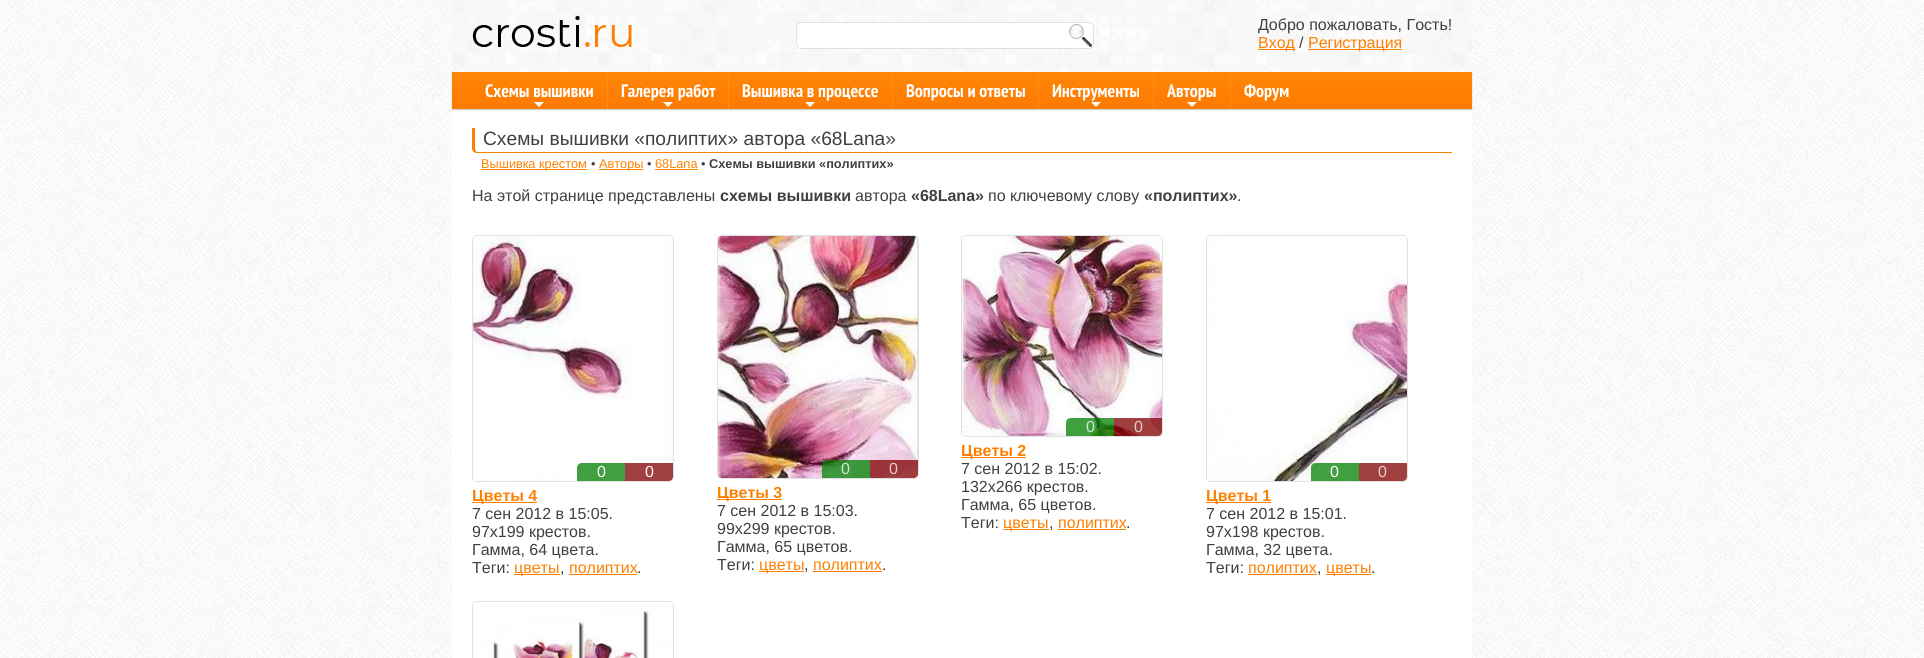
import math
import cairo

surface = cairo.ImageSurface(cairo.FORMAT_RGB24, 1924, 658)
ctx = cairo.Context(surface)
options = cairo.FontOptions()
options.set_hint_metrics(cairo.HINT_METRICS_OFF)
options.set_hint_style(cairo.HINT_STYLE_NONE)
ctx.set_font_options(options)
ctx.set_miter_limit(4)


def round_rect(x, y, w, h, r):
    ctx.new_sub_path()
    for i, (u, v) in enumerate([(x + w - r, y + h - r), (x + r, y + h - r), (x + r, y + r), (x + w - r, y + r)]):
        ctx.arc(u, v, r, i * math.pi / 2, (i + 1) * math.pi / 2)
    ctx.close_path()


def shadow(x, y, w, h, r, blur, alpha):
    ctx.push_group_with_content(cairo.CONTENT_ALPHA)
    ctx.set_operator(cairo.OPERATOR_SOURCE)
    for i in range(15, -16, -2):
        e = blur * i / 6
        if min(w, h) + 2 * e > 0:
            ctx.set_source_rgba(0, 0, 0, alpha * math.erfc((i - 1) / 8.5) / 2)
            round_rect(x - e, y - e, w + 2 * e, h + 2 * e, max(0, min(r + e + blur * .6, min(w, h) / 2 + e)))
            ctx.fill()
    ctx.mask(ctx.pop_group())


def picture(path, x, y, w, h):
    ctx.save()
    ctx.set_source_surface(cairo.ImageSurface.create_from_png(path), x, y)
    ctx.rectangle(x, y, w, h)
    ctx.fill()
    ctx.restore()


ctx.set_source_rgb(1, 1, 1)
ctx.paint()
picture("img1.png", 0, 0, 1924, 658)
ctx.set_source_rgb(1, 1, 1)
ctx.rectangle(452, 109, 1020, 549)
ctx.fill()
picture("img2.png", 452, 0, 1020, 72)
picture("img3.png", 472, 16, 160, 31)
round_rect(796.5, 22.5, 297, 26, 4.5)
ctx.fill_preserve()
ctx.set_source_rgb(0.878, 0.878, 0.878)
ctx.set_line_width(1)
ctx.stroke()
picture("img4.png", 1069, 24, 23, 23)
ctx.select_font_face("Liberation Sans")
ctx.set_font_size(16)
ctx.set_source_rgb(0.251, 0.251, 0.251)
ctx.move_to(1258, 30)
ctx.show_text("Добро пожаловать, Гость!")
ctx.set_source_rgb(1, 0.502, 0)
ctx.rectangle(1258, 49, 37, 1)
ctx.fill()
ctx.move_to(1258, 48)
ctx.show_text("Вход")
ctx.set_source_rgb(0.251, 0.251, 0.251)
ctx.move_to(1299, 48)
ctx.show_text("/")
ctx.set_source_rgb(1, 0.502, 0)
ctx.rectangle(1308, 49, 94, 1)
ctx.fill()
ctx.move_to(1308, 48)
ctx.show_text("Регистрация")
ctx.set_source_rgb(0, 0, 0)
shadow(452, 73, 1020, 37, 0, 0.5, 0.2)
gradient = cairo.LinearGradient(962, 72, 962, 109)
gradient.add_color_stop_rgba(0, 1, 0.525, 0.031, 1)
gradient.add_color_stop_rgba(1, 0.992, 0.478, 0, 1)
ctx.set_source(gradient)
ctx.rectangle(452, 72, 1020, 37)
ctx.fill()
ctx.select_font_face("PT Sans Narrow", cairo.FONT_SLANT_NORMAL, cairo.FONT_WEIGHT_BOLD)
ctx.set_font_size(18)
ctx.set_source_rgb(1, 1, 1)
ctx.move_to(485, 97)
ctx.show_text("Схемы вышивки")
ctx.new_path()
ctx.move_to(534, 102)
ctx.line_to(544, 102)
ctx.line_to(539, 107)
ctx.close_path()
ctx.fill()
ctx.set_source_rgb(1, 0.565, 0.063)
ctx.rectangle(607, 72, 1, 37)
ctx.fill()
ctx.set_source_rgb(1, 1, 1)
ctx.move_to(621, 97)
ctx.show_text("Галерея работ")
ctx.new_path()
ctx.move_to(663, 102)
ctx.line_to(673, 102)
ctx.line_to(668, 107)
ctx.close_path()
ctx.fill()
ctx.set_source_rgb(1, 0.565, 0.063)
ctx.rectangle(728, 72, 1, 37)
ctx.fill()
ctx.set_source_rgb(1, 1, 1)
ctx.move_to(742, 97)
ctx.show_text("Вышивка в процессе")
ctx.new_path()
ctx.move_to(805, 102)
ctx.line_to(815, 102)
ctx.line_to(810, 107)
ctx.close_path()
ctx.fill()
ctx.set_source_rgb(1, 0.565, 0.063)
ctx.rectangle(892, 72, 1, 37)
ctx.fill()
ctx.set_source_rgb(1, 1, 1)
ctx.move_to(906, 97)
ctx.show_text("Вопросы и ответы")
ctx.set_source_rgb(1, 0.565, 0.063)
ctx.rectangle(1038, 72, 1, 37)
ctx.fill()
ctx.set_source_rgb(1, 1, 1)
ctx.move_to(1052, 97)
ctx.show_text("Инструменты")
ctx.new_path()
ctx.move_to(1091, 102)
ctx.line_to(1101, 102)
ctx.line_to(1096, 107)
ctx.close_path()
ctx.fill()
ctx.set_source_rgb(1, 0.565, 0.063)
ctx.rectangle(1153, 72, 1, 37)
ctx.fill()
ctx.set_source_rgb(1, 1, 1)
ctx.move_to(1167, 97)
ctx.show_text("Авторы")
ctx.new_path()
ctx.move_to(1187, 102)
ctx.line_to(1197, 102)
ctx.line_to(1192, 107)
ctx.close_path()
ctx.fill()
ctx.set_source_rgb(1, 0.565, 0.063)
ctx.rectangle(1230, 72, 1, 37)
ctx.fill()
ctx.set_source_rgb(1, 1, 1)
ctx.move_to(1244, 97)
ctx.show_text("Форум")
ctx.set_source_rgb(1, 0.502, 0)
ctx.set_fill_rule(cairo.FILL_RULE_EVEN_ODD)
ctx.new_path()
ctx.move_to(472, 128)
ctx.line_to(1452, 128)
ctx.line_to(1452, 153)
ctx.line_to(477, 153)
ctx.curve_to(474, 153, 472, 151, 472, 148)
ctx.close_path()
ctx.move_to(475, 128)
ctx.line_to(1452, 128)
ctx.line_to(1452, 152)
ctx.line_to(477, 152)
ctx.curve_to(476, 152, 475, 150, 475, 148)
ctx.close_path()
ctx.fill()
ctx.select_font_face("Liberation Sans")
ctx.set_font_size(19.2)
ctx.set_source_rgb(0.251, 0.251, 0.251)
ctx.move_to(483, 145)
ctx.show_text("Схемы вышивки «полиптих» автора «68Lana»")
ctx.set_source_rgb(1, 0.502, 0)
ctx.rectangle(481, 169, 106, 1)
ctx.fill()
ctx.set_font_size(12.75)
ctx.move_to(481, 168)
ctx.show_text("Вышивка крестом")
ctx.set_source_rgb(0.251, 0.251, 0.251)
ctx.move_to(591, 168)
ctx.show_text("•")
ctx.set_source_rgb(1, 0.502, 0)
ctx.rectangle(599, 169, 44, 1)
ctx.fill()
ctx.move_to(599, 168)
ctx.show_text("Авторы")
ctx.set_source_rgb(0.251, 0.251, 0.251)
ctx.move_to(647, 168)
ctx.show_text("•")
ctx.set_source_rgb(1, 0.502, 0)
ctx.move_to(655, 168)
ctx.show_text("68Lana")
ctx.rectangle(655, 169, 43, 1)
ctx.fill()
ctx.set_source_rgb(0.251, 0.251, 0.251)
ctx.move_to(701, 168)
ctx.show_text("•")
ctx.select_font_face("Liberation Sans", cairo.FONT_SLANT_NORMAL, cairo.FONT_WEIGHT_BOLD)
ctx.move_to(709, 168)
ctx.show_text("Схемы вышивки «полиптих»")
ctx.select_font_face("Liberation Sans")
ctx.set_font_size(16)
ctx.move_to(472, 201)
ctx.show_text("На этой странице представлены")
ctx.select_font_face("Liberation Sans", cairo.FONT_SLANT_NORMAL, cairo.FONT_WEIGHT_BOLD)
ctx.move_to(720, 201)
ctx.show_text("схемы вышивки")
ctx.select_font_face("Liberation Sans")
ctx.move_to(855, 201)
ctx.show_text("автора")
ctx.select_font_face("Liberation Sans", cairo.FONT_SLANT_NORMAL, cairo.FONT_WEIGHT_BOLD)
ctx.move_to(911, 201)
ctx.show_text("«68Lana»")
ctx.select_font_face("Liberation Sans")
ctx.move_to(988, 201)
ctx.show_text("по ключевому слову")
ctx.select_font_face("Liberation Sans", cairo.FONT_SLANT_NORMAL, cairo.FONT_WEIGHT_BOLD)
ctx.move_to(1144, 201)
ctx.show_text("«полиптих»")
ctx.select_font_face("Liberation Sans")
ctx.move_to(1237, 201)
ctx.show_text(".")
round_rect(472.5, 235.5, 201, 246, 4.5)
ctx.set_source_rgb(0.878, 0.878, 0.878)
ctx.stroke()
picture("img5.png", 473, 236, 200, 245)
ctx.set_source_rgb(0.251, 0.627, 0.251)
ctx.new_path()
ctx.move_to(582, 463)
ctx.line_to(625, 463)
ctx.line_to(625, 481)
ctx.line_to(577, 481)
ctx.line_to(577, 468)
ctx.curve_to(577, 465, 579, 463, 582, 463)
ctx.close_path()
ctx.fill()
ctx.set_source_rgb(1, 1, 1)
ctx.move_to(597, 477)
ctx.show_text("0")
ctx.set_source_rgba(0.502, 0, 0, 0.75)
ctx.new_path()
ctx.move_to(625, 463)
ctx.line_to(673, 463)
ctx.line_to(673, 477)
ctx.curve_to(673, 479, 671, 481, 669, 481)
ctx.line_to(625, 481)
ctx.close_path()
ctx.fill()
ctx.set_source_rgb(1, 1, 1)
ctx.move_to(645, 477)
ctx.show_text("0")
ctx.set_source_rgb(1, 0.502, 0)
ctx.rectangle(472, 502, 65, 1)
ctx.fill()
ctx.select_font_face("Liberation Sans", cairo.FONT_SLANT_NORMAL, cairo.FONT_WEIGHT_BOLD)
ctx.move_to(472, 501)
ctx.show_text("Цветы 4")
ctx.select_font_face("Liberation Sans")
ctx.set_source_rgb(0.251, 0.251, 0.251)
ctx.move_to(472, 519)
ctx.show_text("7 сен 2012 в 15:05.")
ctx.move_to(472, 537)
ctx.show_text("97x199 крестов.")
ctx.move_to(472, 555)
ctx.show_text("Гамма, 64 цвета.")
ctx.move_to(472, 573)
ctx.show_text("Теги:")
ctx.set_source_rgb(1, 0.502, 0)
ctx.rectangle(514, 574, 46, 1)
ctx.fill()
ctx.move_to(514, 573)
ctx.show_text("цветы")
ctx.set_source_rgb(0.251, 0.251, 0.251)
ctx.move_to(560, 573)
ctx.show_text(",")
ctx.set_source_rgb(1, 0.502, 0)
ctx.move_to(569, 573)
ctx.show_text("полиптих")
ctx.rectangle(569, 574, 68, 1)
ctx.fill()
ctx.set_source_rgb(0.251, 0.251, 0.251)
ctx.move_to(637, 573)
ctx.show_text(".")
round_rect(717.5, 235.5, 201, 243, 4.5)
ctx.set_source_rgb(0.878, 0.878, 0.878)
ctx.stroke()
picture("img6.png", 718, 236, 200, 242)
ctx.set_source_rgba(0, 0.502, 0, 0.75)
ctx.new_path()
ctx.move_to(827, 460)
ctx.line_to(870, 460)
ctx.line_to(870, 478)
ctx.line_to(822, 478)
ctx.line_to(822, 465)
ctx.curve_to(822, 462, 824, 460, 827, 460)
ctx.close_path()
ctx.fill()
ctx.set_source_rgb(0.808, 0.898, 0.808)
ctx.move_to(841, 474)
ctx.show_text("0")
ctx.set_source_rgba(0.502, 0, 0, 0.75)
ctx.new_path()
ctx.move_to(870, 460)
ctx.line_to(918, 460)
ctx.line_to(918, 474)
ctx.curve_to(918, 476, 916, 478, 914, 478)
ctx.line_to(870, 478)
ctx.close_path()
ctx.fill()
ctx.set_source_rgb(0.902, 0.8, 0.808)
ctx.move_to(889, 474)
ctx.show_text("0")
ctx.set_source_rgb(1, 0.502, 0)
ctx.rectangle(717, 499, 65, 1)
ctx.fill()
ctx.select_font_face("Liberation Sans", cairo.FONT_SLANT_NORMAL, cairo.FONT_WEIGHT_BOLD)
ctx.move_to(717, 498)
ctx.show_text("Цветы 3")
ctx.select_font_face("Liberation Sans")
ctx.set_source_rgb(0.251, 0.251, 0.251)
ctx.move_to(717, 516)
ctx.show_text("7 сен 2012 в 15:03.")
ctx.move_to(717, 534)
ctx.show_text("99x299 крестов.")
ctx.move_to(717, 552)
ctx.show_text("Гамма, 65 цветов.")
ctx.move_to(717, 570)
ctx.show_text("Теги:")
ctx.set_source_rgb(1, 0.502, 0)
ctx.rectangle(759, 571, 45, 1)
ctx.fill()
ctx.move_to(759, 570)
ctx.show_text("цветы")
ctx.set_source_rgb(0.251, 0.251, 0.251)
ctx.move_to(804, 570)
ctx.show_text(",")
ctx.set_source_rgb(1, 0.502, 0)
ctx.move_to(813, 570)
ctx.show_text("полиптих")
ctx.rectangle(813, 571, 69, 1)
ctx.fill()
ctx.set_source_rgb(0.251, 0.251, 0.251)
ctx.move_to(882, 570)
ctx.show_text(".")
round_rect(961.5, 235.5, 201, 201, 4.5)
ctx.set_source_rgb(0.878, 0.878, 0.878)
ctx.stroke()
picture("img7.png", 962, 236, 200, 200)
ctx.set_source_rgba(0, 0.502, 0, 0.75)
ctx.new_path()
ctx.move_to(1071, 418)
ctx.line_to(1114, 418)
ctx.line_to(1114, 436)
ctx.line_to(1066, 436)
ctx.line_to(1066, 423)
ctx.curve_to(1066, 420, 1068, 418, 1071, 418)
ctx.close_path()
ctx.fill()
ctx.set_source_rgb(0.808, 0.898, 0.808)
ctx.move_to(1086, 432)
ctx.show_text("0")
ctx.set_source_rgba(0.502, 0, 0, 0.75)
ctx.new_path()
ctx.move_to(1114, 418)
ctx.line_to(1162, 418)
ctx.line_to(1162, 432)
ctx.curve_to(1162, 434, 1160, 436, 1158, 436)
ctx.line_to(1114, 436)
ctx.close_path()
ctx.fill()
ctx.set_source_rgb(0.902, 0.8, 0.808)
ctx.move_to(1134, 432)
ctx.show_text("0")
ctx.set_source_rgb(1, 0.502, 0)
ctx.rectangle(961, 457, 65, 1)
ctx.fill()
ctx.select_font_face("Liberation Sans", cairo.FONT_SLANT_NORMAL, cairo.FONT_WEIGHT_BOLD)
ctx.move_to(961, 456)
ctx.show_text("Цветы 2")
ctx.select_font_face("Liberation Sans")
ctx.set_source_rgb(0.251, 0.251, 0.251)
ctx.move_to(961, 474)
ctx.show_text("7 сен 2012 в 15:02.")
ctx.move_to(961, 492)
ctx.show_text("132x266 крестов.")
ctx.move_to(961, 510)
ctx.show_text("Гамма, 65 цветов.")
ctx.move_to(961, 528)
ctx.show_text("Теги:")
ctx.set_source_rgb(1, 0.502, 0)
ctx.rectangle(1003, 529, 46, 1)
ctx.fill()
ctx.move_to(1003, 528)
ctx.show_text("цветы")
ctx.set_source_rgb(0.251, 0.251, 0.251)
ctx.move_to(1049, 528)
ctx.show_text(",")
ctx.set_source_rgb(1, 0.502, 0)
ctx.move_to(1058, 528)
ctx.show_text("полиптих")
ctx.rectangle(1058, 529, 68, 1)
ctx.fill()
ctx.set_source_rgb(0.251, 0.251, 0.251)
ctx.move_to(1126, 528)
ctx.show_text(".")
round_rect(1206.5, 235.5, 201, 246, 4.5)
ctx.set_source_rgb(0.878, 0.878, 0.878)
ctx.stroke()
picture("img8.png", 1207, 236, 200, 245)
ctx.set_source_rgba(0, 0.502, 0, 0.75)
ctx.new_path()
ctx.move_to(1316, 463)
ctx.line_to(1359, 463)
ctx.line_to(1359, 481)
ctx.line_to(1311, 481)
ctx.line_to(1311, 468)
ctx.curve_to(1311, 465, 1313, 463, 1316, 463)
ctx.close_path()
ctx.fill()
ctx.set_source_rgb(1, 1, 1)
ctx.move_to(1330, 477)
ctx.show_text("0")
ctx.set_source_rgba(0.502, 0, 0, 0.75)
ctx.new_path()
ctx.move_to(1359, 463)
ctx.line_to(1407, 463)
ctx.line_to(1407, 477)
ctx.curve_to(1407, 479, 1405, 481, 1403, 481)
ctx.line_to(1359, 481)
ctx.close_path()
ctx.fill()
ctx.set_source_rgb(0.902, 0.8, 0.808)
ctx.move_to(1378, 477)
ctx.show_text("0")
ctx.set_source_rgb(1, 0.502, 0)
ctx.rectangle(1206, 502, 65, 1)
ctx.fill()
ctx.select_font_face("Liberation Sans", cairo.FONT_SLANT_NORMAL, cairo.FONT_WEIGHT_BOLD)
ctx.move_to(1206, 501)
ctx.show_text("Цветы 1")
ctx.select_font_face("Liberation Sans")
ctx.set_source_rgb(0.251, 0.251, 0.251)
ctx.move_to(1206, 519)
ctx.show_text("7 сен 2012 в 15:01.")
ctx.move_to(1206, 537)
ctx.show_text("97x198 крестов.")
ctx.move_to(1206, 555)
ctx.show_text("Гамма, 32 цвета.")
ctx.move_to(1206, 573)
ctx.show_text("Теги:")
ctx.set_source_rgb(1, 0.502, 0)
ctx.move_to(1248, 573)
ctx.show_text("полиптих")
ctx.rectangle(1248, 574, 69, 1)
ctx.fill()
ctx.set_source_rgb(0.251, 0.251, 0.251)
ctx.move_to(1317, 573)
ctx.show_text(",")
ctx.set_source_rgb(1, 0.502, 0)
ctx.rectangle(1326, 574, 45, 1)
ctx.fill()
ctx.move_to(1326, 573)
ctx.show_text("цветы")
ctx.set_source_rgb(0.251, 0.251, 0.251)
ctx.move_to(1371, 573)
ctx.show_text(".")
round_rect(472.5, 601.5, 201, 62, 4.5)
ctx.set_source_rgb(0.878, 0.878, 0.878)
ctx.stroke()
picture("img9.png", 473, 602, 200, 56)
surface.write_to_png("page.png")
